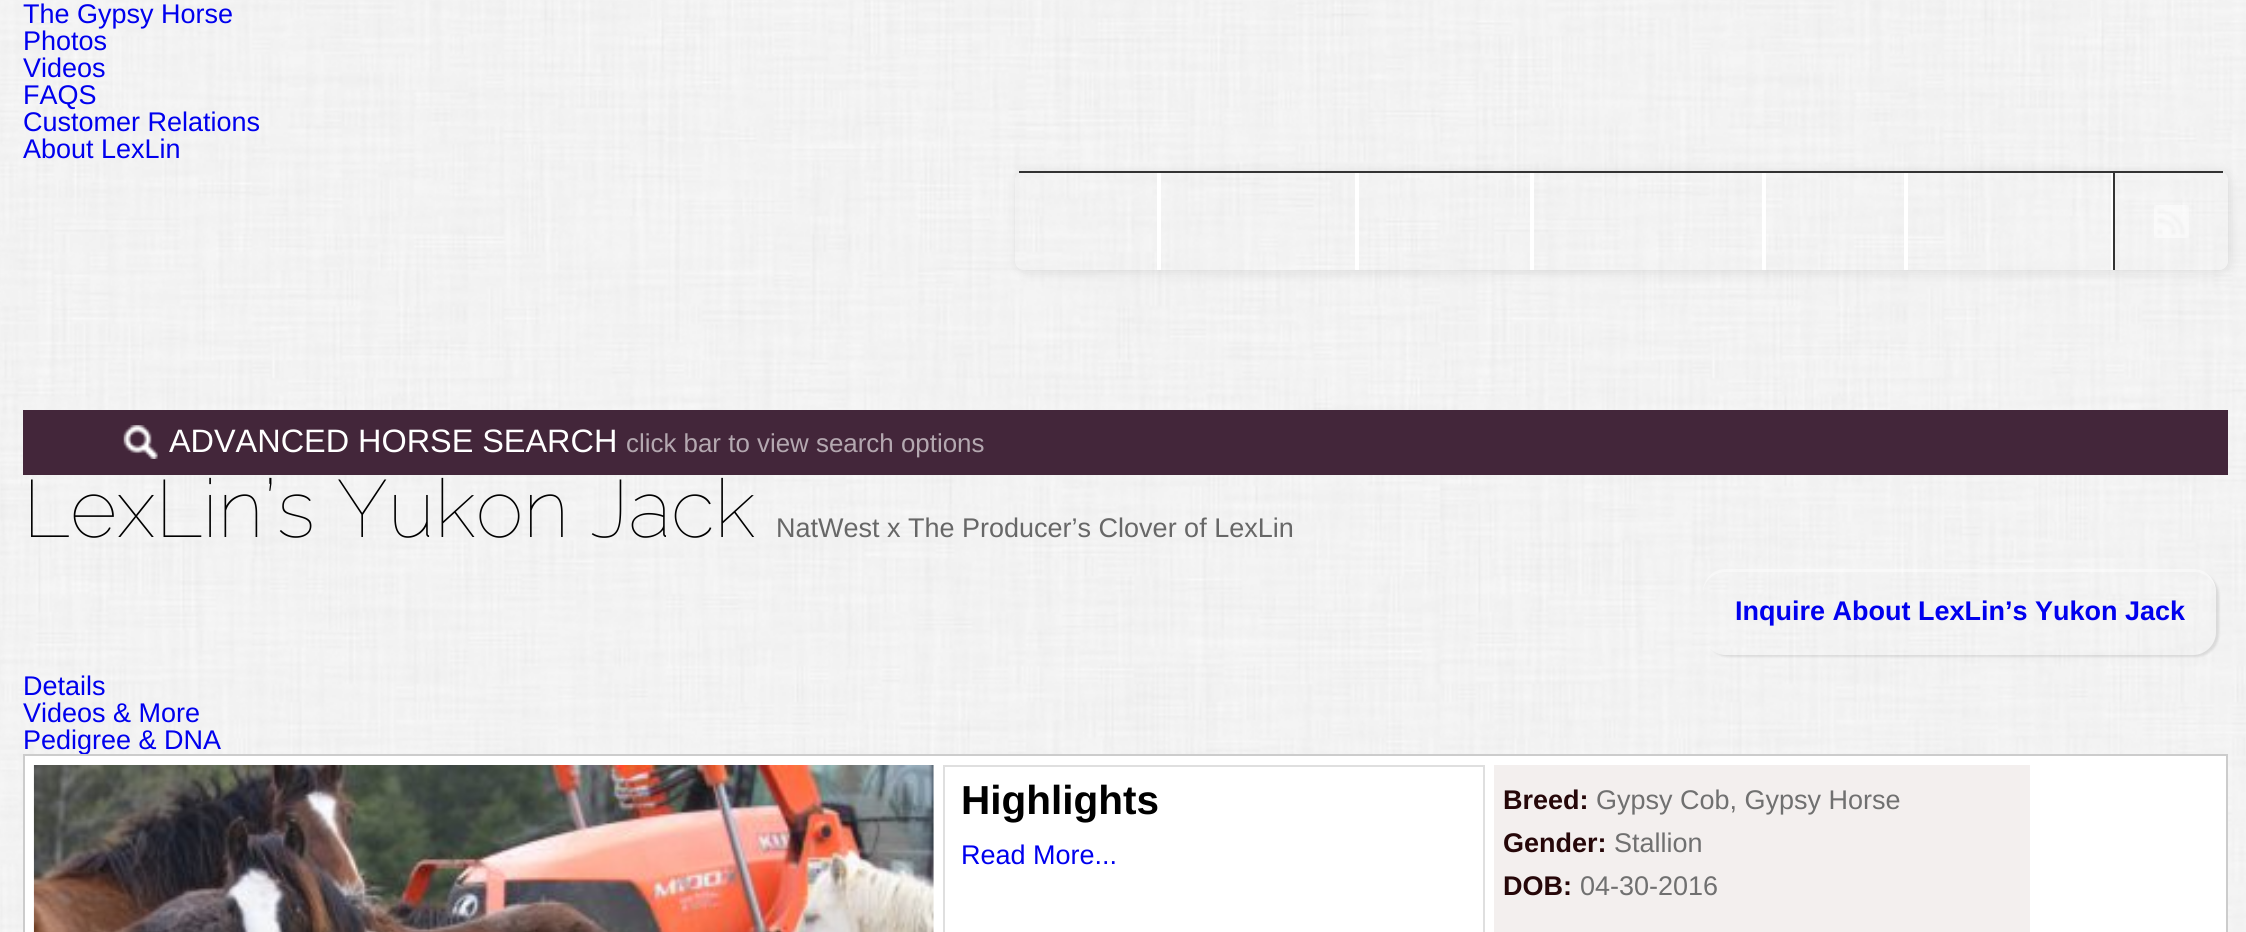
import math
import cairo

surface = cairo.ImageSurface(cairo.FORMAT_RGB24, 2246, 932)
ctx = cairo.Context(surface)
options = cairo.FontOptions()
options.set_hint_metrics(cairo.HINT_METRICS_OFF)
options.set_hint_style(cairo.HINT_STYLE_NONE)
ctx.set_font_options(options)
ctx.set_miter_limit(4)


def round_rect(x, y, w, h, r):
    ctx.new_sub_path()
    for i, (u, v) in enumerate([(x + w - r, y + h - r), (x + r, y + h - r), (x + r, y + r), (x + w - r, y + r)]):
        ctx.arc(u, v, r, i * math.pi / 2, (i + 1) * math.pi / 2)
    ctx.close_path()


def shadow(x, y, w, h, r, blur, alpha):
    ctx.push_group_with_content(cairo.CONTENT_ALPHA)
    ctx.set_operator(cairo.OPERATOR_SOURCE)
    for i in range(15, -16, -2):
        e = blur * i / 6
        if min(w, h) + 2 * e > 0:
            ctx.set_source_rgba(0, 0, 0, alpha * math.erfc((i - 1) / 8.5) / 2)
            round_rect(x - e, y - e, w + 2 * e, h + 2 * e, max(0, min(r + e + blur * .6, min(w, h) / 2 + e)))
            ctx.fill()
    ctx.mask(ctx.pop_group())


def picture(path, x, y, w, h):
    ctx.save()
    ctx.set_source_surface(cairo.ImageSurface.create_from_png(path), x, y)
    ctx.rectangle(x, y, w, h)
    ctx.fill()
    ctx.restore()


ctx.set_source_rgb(1, 1, 1)
ctx.paint()
picture("img1.png", 0, 0, 2246, 932)
ctx.select_font_face("Liberation Sans")
ctx.set_font_size(27)
ctx.set_source_rgb(0, 0, 0.933)
ctx.move_to(23, 23)
ctx.show_text("The Gypsy Horse")
ctx.move_to(23, 50)
ctx.show_text("Photos")
ctx.move_to(23, 77)
ctx.show_text("Videos")
ctx.move_to(23, 104)
ctx.show_text("FAQS")
ctx.move_to(23, 131)
ctx.show_text("Customer Relations")
ctx.move_to(23, 158)
ctx.show_text("About LexLin")
ctx.save()
ctx.set_fill_rule(cairo.FILL_RULE_EVEN_ODD)
ctx.new_path()
ctx.move_to(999, 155)
ctx.line_to(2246, 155)
ctx.line_to(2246, 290)
ctx.line_to(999, 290)
ctx.close_path()
ctx.move_to(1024, 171)
ctx.line_to(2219, 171)
ctx.curve_to(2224, 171, 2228, 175, 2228, 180)
ctx.line_to(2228, 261)
ctx.curve_to(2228, 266, 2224, 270, 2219, 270)
ctx.line_to(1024, 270)
ctx.curve_to(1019, 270, 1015, 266, 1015, 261)
ctx.line_to(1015, 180)
ctx.curve_to(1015, 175, 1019, 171, 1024, 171)
ctx.close_path()
ctx.clip()
ctx.set_source_rgb(0, 0, 0)
shadow(1017, 173, 1213, 99, 9, 5.5, 0.1)
ctx.restore()
ctx.set_source_rgb(0.2, 0.2, 0.2)
ctx.rectangle(1019, 171, 1204, 2)
ctx.fill()
ctx.set_source_rgb(1, 1, 1)
ctx.rectangle(1157, 173, 4, 97)
ctx.fill()
ctx.rectangle(1355, 173, 4, 97)
ctx.fill()
ctx.rectangle(1530, 173, 4, 97)
ctx.fill()
ctx.rectangle(1762, 173, 4, 97)
ctx.fill()
ctx.rectangle(1904, 173, 4, 97)
ctx.fill()
ctx.rectangle(2111, 173, 2, 97)
ctx.fill()
ctx.set_source_rgb(0.2, 0.2, 0.2)
ctx.rectangle(2113, 173, 2, 97)
ctx.fill()
picture("img2.png", 2154, 205, 35, 33)
ctx.set_source_rgb(0.263, 0.149, 0.227)
ctx.rectangle(23, 410, 2205, 65)
ctx.fill()
picture("img3.png", 123, 425, 35, 34)
ctx.set_font_size(32.4)
ctx.set_source_rgb(1, 1, 1)
ctx.move_to(169, 452)
ctx.show_text("ADVANCED HORSE SEARCH")
ctx.set_font_size(25.9)
ctx.set_source_rgb(0.706, 0.659, 0.69)
ctx.move_to(626, 452)
ctx.show_text("click bar to view search options")
ctx.select_font_face("Raleway Thin")
ctx.set_font_size(81)
ctx.set_source_rgb(0, 0, 0)
ctx.move_to(23, 537)
ctx.show_text("LexLin’s Yukon Jack")
ctx.select_font_face("Liberation Sans")
ctx.set_font_size(27)
ctx.set_source_rgb(0.404, 0.404, 0.404)
ctx.move_to(776, 537)
ctx.show_text("NatWest x The Producer’s Clover of LexLin")
ctx.save()
ctx.set_fill_rule(cairo.FILL_RULE_EVEN_ODD)
ctx.new_path()
ctx.move_to(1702, 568)
ctx.line_to(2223, 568)
ctx.line_to(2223, 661)
ctx.line_to(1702, 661)
ctx.close_path()
ctx.move_to(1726, 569)
ctx.line_to(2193, 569)
ctx.curve_to(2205.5, 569, 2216, 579.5, 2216, 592)
ctx.line_to(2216, 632)
ctx.curve_to(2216, 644.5, 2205.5, 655, 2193, 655)
ctx.line_to(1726, 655)
ctx.curve_to(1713.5, 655, 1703, 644.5, 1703, 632)
ctx.line_to(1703, 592)
ctx.curve_to(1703, 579.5, 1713.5, 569, 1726, 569)
ctx.close_path()
ctx.clip()
ctx.set_source_rgb(0, 0, 0)
shadow(1706, 572, 513, 85, 23, 1, 0.1)
ctx.restore()
ctx.set_source_rgba(1, 1, 1, 0.4)
ctx.new_path()
ctx.move_to(1726, 572)
ctx.line_to(2194, 572)
ctx.curve_to(2206, 572, 2216, 582, 2216, 594)
ctx.line_to(2216, 592)
ctx.curve_to(2216, 579, 2206, 569, 2193, 569)
ctx.line_to(1726, 569)
ctx.curve_to(1713, 569, 1703, 579, 1703, 592)
ctx.line_to(1703, 594)
ctx.curve_to(1703, 582, 1713, 572, 1726, 572)
ctx.close_path()
ctx.fill()
ctx.select_font_face("Liberation Sans", cairo.FONT_SLANT_NORMAL, cairo.FONT_WEIGHT_BOLD)
ctx.set_source_rgb(0, 0, 0.933)
ctx.move_to(1735, 620)
ctx.show_text("Inquire About LexLin’s Yukon Jack")
ctx.select_font_face("Liberation Sans")
ctx.move_to(23, 695)
ctx.show_text("Details")
ctx.move_to(23, 722)
ctx.show_text("Videos & More")
ctx.move_to(23, 749)
ctx.show_text("Pedigree & DNA")
ctx.set_source_rgb(1, 1, 1)
ctx.rectangle(24, 755, 2203, 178)
ctx.fill_preserve()
ctx.set_source_rgb(0.8, 0.8, 0.8)
ctx.stroke()
picture("img4.png", 33, 765, 901, 167)
ctx.rectangle(944, 766, 540, 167)
ctx.set_source_rgb(0.875, 0.875, 0.875)
ctx.stroke()
ctx.select_font_face("Liberation Sans", cairo.FONT_SLANT_NORMAL, cairo.FONT_WEIGHT_BOLD)
ctx.set_font_size(40.5)
ctx.set_source_rgb(0, 0, 0)
ctx.move_to(961, 814)
ctx.show_text("Highlights")
ctx.select_font_face("Liberation Sans")
ctx.set_font_size(27)
ctx.set_source_rgb(0, 0, 0.933)
ctx.move_to(961, 864)
ctx.show_text("Read More...")
gradient = cairo.LinearGradient(1762, 765, 1762, 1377)
gradient.add_color_stop_rgba(0, 0.953, 0.937, 0.933, 1)
gradient.add_color_stop_rgba(0.31, 0.953, 0.937, 0.933, 1)
gradient.add_color_stop_rgba(0.53, 0.961, 0.945, 0.941, 1)
gradient.add_color_stop_rgba(0.8, 0.969, 0.953, 0.949, 1)
gradient.add_color_stop_rgba(1, 1, 1, 1, 1)
ctx.set_source(gradient)
ctx.rectangle(1494, 765, 536, 167)
ctx.fill()
ctx.select_font_face("Liberation Sans", cairo.FONT_SLANT_NORMAL, cairo.FONT_WEIGHT_BOLD)
ctx.set_source_rgb(0.149, 0.031, 0.039)
ctx.move_to(1503, 809)
ctx.show_text("Breed:")
ctx.select_font_face("Liberation Sans")
ctx.set_source_rgb(0.439, 0.439, 0.439)
ctx.move_to(1596, 809)
ctx.show_text("Gypsy Cob, Gypsy Horse")
ctx.select_font_face("Liberation Sans", cairo.FONT_SLANT_NORMAL, cairo.FONT_WEIGHT_BOLD)
ctx.set_source_rgb(0.149, 0.031, 0.039)
ctx.move_to(1503, 852)
ctx.show_text("Gender:")
ctx.select_font_face("Liberation Sans")
ctx.set_source_rgb(0.439, 0.439, 0.439)
ctx.move_to(1614, 852)
ctx.show_text("Stallion")
ctx.select_font_face("Liberation Sans", cairo.FONT_SLANT_NORMAL, cairo.FONT_WEIGHT_BOLD)
ctx.set_source_rgb(0.149, 0.031, 0.039)
ctx.move_to(1503, 895)
ctx.show_text("DOB:")
ctx.select_font_face("Liberation Sans")
ctx.set_source_rgb(0.439, 0.439, 0.439)
ctx.move_to(1580, 895)
ctx.show_text("04-30-2016")
surface.write_to_png("page.png")
